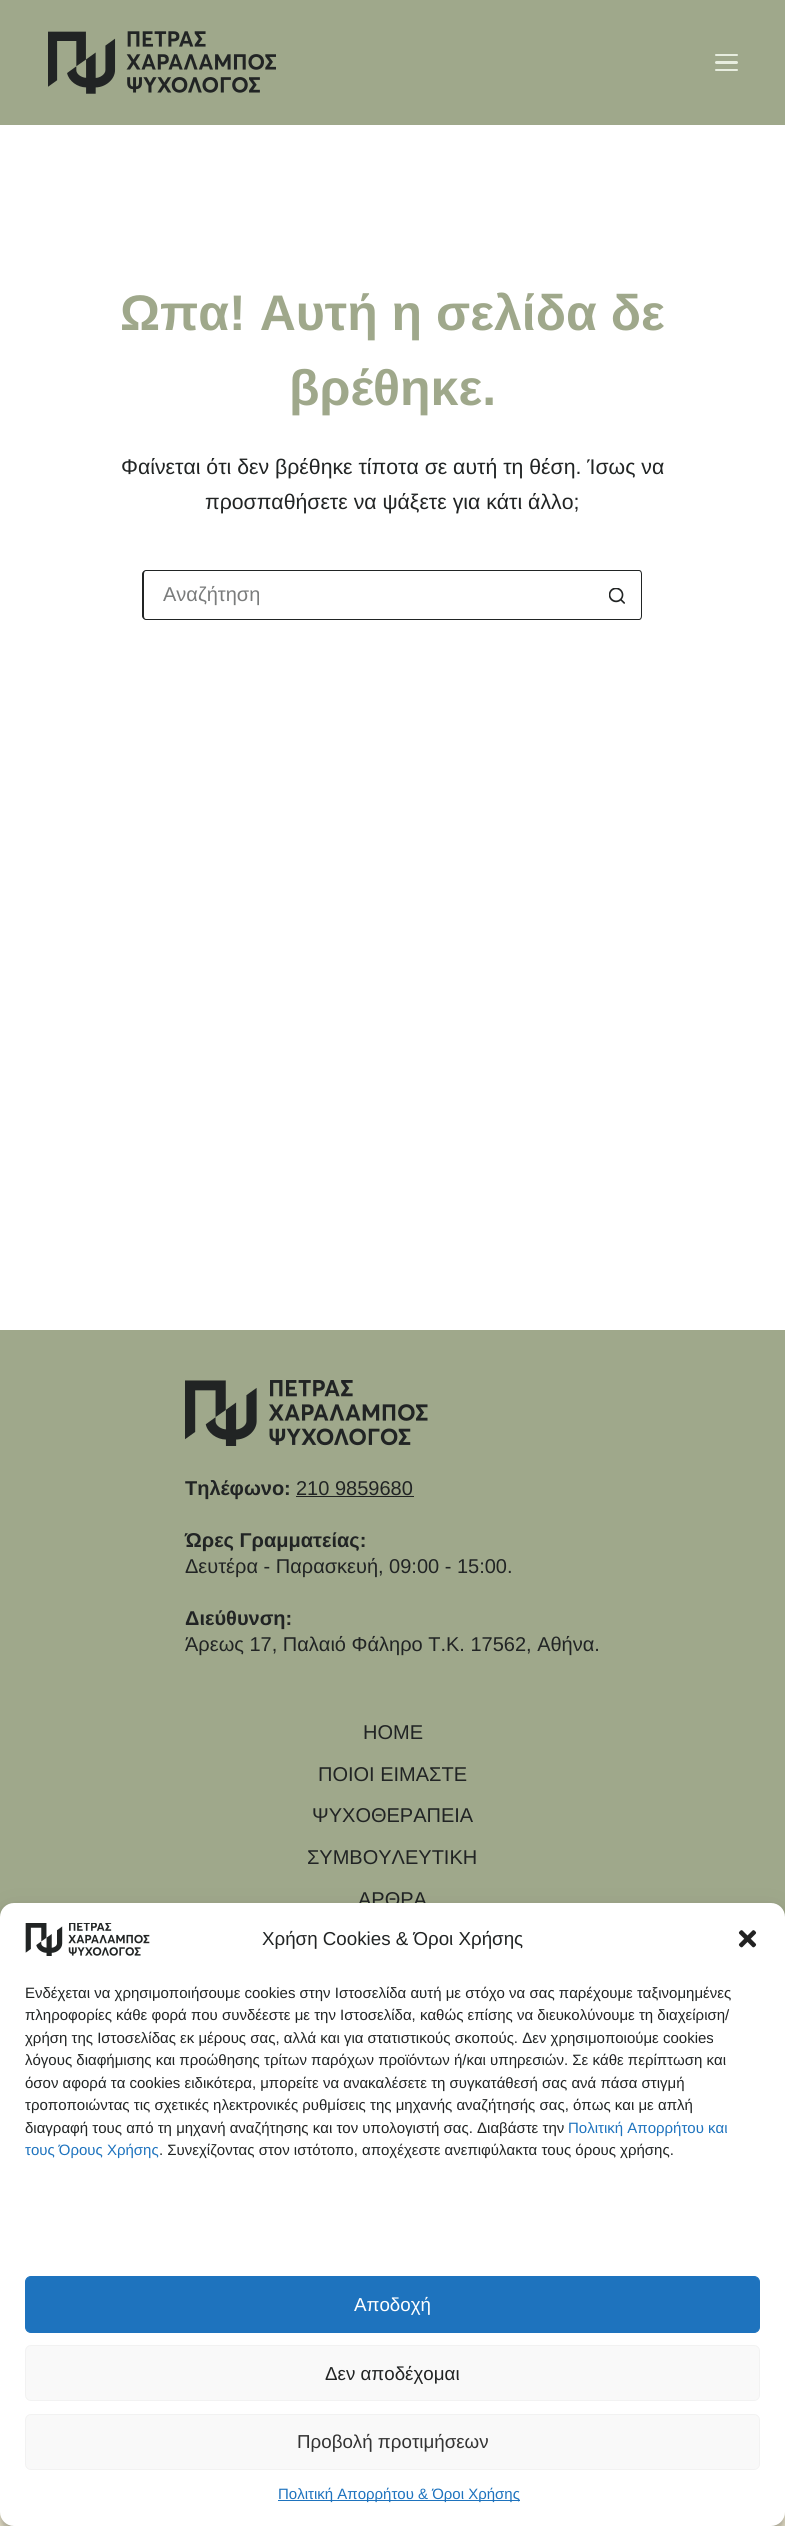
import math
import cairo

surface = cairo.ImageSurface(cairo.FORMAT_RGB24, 785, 2526)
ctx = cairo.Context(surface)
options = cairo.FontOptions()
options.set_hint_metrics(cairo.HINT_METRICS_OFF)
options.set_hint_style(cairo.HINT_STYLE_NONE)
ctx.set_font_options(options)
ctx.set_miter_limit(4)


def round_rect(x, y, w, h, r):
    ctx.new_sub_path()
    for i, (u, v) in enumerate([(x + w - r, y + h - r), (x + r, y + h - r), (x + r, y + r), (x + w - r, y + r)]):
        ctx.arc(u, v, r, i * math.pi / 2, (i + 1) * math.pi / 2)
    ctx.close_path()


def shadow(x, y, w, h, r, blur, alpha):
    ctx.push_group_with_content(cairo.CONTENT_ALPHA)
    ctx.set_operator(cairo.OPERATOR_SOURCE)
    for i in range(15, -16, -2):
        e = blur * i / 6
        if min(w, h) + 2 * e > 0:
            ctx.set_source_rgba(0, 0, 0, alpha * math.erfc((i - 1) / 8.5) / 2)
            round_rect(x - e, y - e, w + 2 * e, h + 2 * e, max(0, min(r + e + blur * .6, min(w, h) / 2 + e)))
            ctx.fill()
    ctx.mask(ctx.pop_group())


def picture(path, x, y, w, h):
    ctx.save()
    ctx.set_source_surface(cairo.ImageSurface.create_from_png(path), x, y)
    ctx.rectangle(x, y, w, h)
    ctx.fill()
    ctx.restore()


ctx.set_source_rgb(1, 1, 1)
ctx.paint()
ctx.set_source_rgb(0.624, 0.659, 0.545)
ctx.rectangle(0, 0, 785, 125)
ctx.fill()
picture("img1.png", 48, 31, 228, 63)
ctx.set_source_rgb(0.906, 0.929, 0.875)
round_rect(715, 54, 23, 2, 1)
ctx.fill()
round_rect(715, 61, 23, 3, 1.5)
ctx.fill()
round_rect(715, 69, 23, 2, 1)
ctx.fill()
ctx.select_font_face("Liberation Sans", cairo.FONT_SLANT_NORMAL, cairo.FONT_WEIGHT_BOLD)
ctx.set_font_size(50)
ctx.set_source_rgb(0.624, 0.659, 0.545)
ctx.move_to(120, 330)
ctx.show_text("Ωπα! Αυτή η σελίδα δε")
ctx.move_to(289, 405)
ctx.show_text("βρέθηκε.")
ctx.select_font_face("Liberation Sans")
ctx.set_font_size(21.25)
ctx.set_source_rgb(0.129, 0.141, 0.141)
ctx.move_to(121, 474)
ctx.show_text("Φαίνεται ότι δεν βρέθηκε τίποτα σε αυτή τη θέση. Ίσως να")
ctx.move_to(205, 509)
ctx.show_text("προσπαθήσετε να ψάξετε για κάτι άλλο;")
ctx.set_fill_rule(cairo.FILL_RULE_EVEN_ODD)
ctx.new_path()
ctx.move_to(146, 570)
ctx.line_to(592, 570)
ctx.line_to(592, 620)
ctx.line_to(146, 620)
ctx.curve_to(144, 620, 142, 618, 142, 616)
ctx.line_to(142, 574)
ctx.curve_to(142, 572, 144, 570, 146, 570)
ctx.close_path()
ctx.move_to(146, 571)
ctx.line_to(592, 571)
ctx.line_to(592, 619)
ctx.line_to(146, 619)
ctx.curve_to(145, 619, 144, 618, 144, 616)
ctx.line_to(144, 574)
ctx.curve_to(144, 572, 145, 571, 146, 571)
ctx.close_path()
ctx.fill()
ctx.set_font_size(20)
ctx.set_source_rgb(0.478, 0.486, 0.486)
ctx.move_to(163, 601)
ctx.show_text("Αναζήτηση")
ctx.set_source_rgb(0.129, 0.141, 0.141)
ctx.new_path()
ctx.move_to(592, 570)
ctx.line_to(639, 570)
ctx.curve_to(641, 570, 642, 572, 642, 574)
ctx.line_to(642, 616)
ctx.curve_to(642, 618, 641, 620, 639, 620)
ctx.line_to(592, 620)
ctx.close_path()
ctx.move_to(592, 571)
ctx.line_to(639, 571)
ctx.curve_to(640, 571, 641, 572, 641, 574)
ctx.line_to(641, 616)
ctx.curve_to(641, 618, 640, 619, 639, 619)
ctx.line_to(592, 619)
ctx.close_path()
ctx.fill()
picture("img2.png", 609, 588, 16, 16)
ctx.set_source_rgb(0.624, 0.659, 0.545)
ctx.rectangle(0, 1330, 785, 587)
ctx.fill()
picture("img3.png", 185, 1380, 243, 66)
ctx.select_font_face("Liberation Sans", cairo.FONT_SLANT_NORMAL, cairo.FONT_WEIGHT_BOLD)
ctx.set_source_rgb(0.129, 0.141, 0.141)
ctx.move_to(185, 1495)
ctx.show_text("Τηλέφωνο:")
ctx.select_font_face("Liberation Sans")
ctx.move_to(296, 1495)
ctx.show_text("210 9859680")
ctx.rectangle(296, 1496, 118, 1)
ctx.fill()
ctx.select_font_face("Liberation Sans", cairo.FONT_SLANT_NORMAL, cairo.FONT_WEIGHT_BOLD)
ctx.move_to(185, 1547)
ctx.show_text("Ώρες Γραμματείας:")
ctx.select_font_face("Liberation Sans")
ctx.move_to(185, 1573)
ctx.show_text("Δευτέρα - Παρασκευή, 09:00 - 15:00.")
ctx.select_font_face("Liberation Sans", cairo.FONT_SLANT_NORMAL, cairo.FONT_WEIGHT_BOLD)
ctx.move_to(185, 1625)
ctx.show_text("Διεύθυνση:")
ctx.select_font_face("Liberation Sans")
ctx.move_to(185, 1651)
ctx.show_text("Άρεως 17, Παλαιό Φάληρο Τ.Κ. 17562, Αθήνα.")
ctx.move_to(363, 1739)
ctx.show_text("HOME")
ctx.move_to(318, 1781)
ctx.show_text("ΠΟΙΟΙ ΕΙΜΑΣΤΕ")
ctx.move_to(312, 1822)
ctx.show_text("ΨΥΧΟΘΕΡΑΠΕΙΑ")
ctx.move_to(307, 1864)
ctx.show_text("ΣΥΜΒΟΥΛΕΥΤΙΚΗ")
ctx.move_to(358, 1906)
ctx.show_text("ΑΡΘΡΑ")
ctx.set_source_rgb(0.992, 0.965, 0.867)
ctx.rectangle(0, 2512, 785, 14)
ctx.fill()
ctx.set_source_rgb(0, 0, 0)
shadow(0, 1910, 785, 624, 14, 4, 0.23)
shadow(0, 1915, 785, 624, 14, 12.5, 0.19)
ctx.set_source_rgb(1, 1, 1)
round_rect(0, 1903, 785, 623, 14)
ctx.fill()
picture("img4.png", 25, 1923, 125, 33)
ctx.set_font_size(18.75)
ctx.set_source_rgb(0.129, 0.141, 0.141)
ctx.move_to(262, 1945)
ctx.show_text("Χρήση Cookies & Όροι Χρήσης")
picture("img5.png", 738, 1930, 19, 18)
ctx.set_font_size(15)
ctx.move_to(25, 1998)
ctx.show_text("Ενδέχεται να χρησιμοποιήσουμε cookies στην Ιστοσελίδα αυτή με στόχο να σας παρέχουμε ταξινομημένες")
ctx.move_to(25, 2020)
ctx.show_text("πληροφορίες κάθε φορά που συνδέεστε με την Ιστοσελίδα, καθώς επίσης να διευκολύνουμε τη διαχείριση/")
ctx.move_to(25, 2043)
ctx.show_text("χρήση της Ιστοσελίδας εκ μέρους σας, αλλά και για στατιστικούς σκοπούς. Δεν χρησιμοποιούμε cookies")
ctx.move_to(25, 2065)
ctx.show_text("λόγους διαφήμισης και προώθησης τρίτων παρόχων προϊόντων ή/και υπηρεσιών. Σε κάθε περίπτωση και")
ctx.move_to(25, 2088)
ctx.show_text("όσον αφορά τα cookies ειδικότερα, μπορείτε να ανακαλέσετε τη συγκατάθεσή σας ανά πάσα στιγμή")
ctx.move_to(25, 2110)
ctx.show_text("τροποποιώντας τις σχετικές ηλεκτρονικές ρυθμίσεις της μηχανής αναζήτησής σας, όπως και με απλή")
ctx.move_to(25, 2133)
ctx.show_text("διαγραφή τους από τη μηχανή αναζήτησης και τον υπολογιστή σας. Διαβάστε την")
ctx.set_source_rgb(0.118, 0.451, 0.745)
ctx.move_to(568, 2133)
ctx.show_text("Πολιτική Απορρήτου και")
ctx.move_to(25, 2155)
ctx.show_text("τους Όρους Χρήσης")
ctx.set_source_rgb(0.129, 0.141, 0.141)
ctx.move_to(159, 2155)
ctx.show_text(". Συνεχίζοντας στον ιστότοπο, αποχέχεστε ανεπιφύλακτα τους όρους χρήσης.")
ctx.set_source_rgb(0.118, 0.451, 0.745)
round_rect(25.5, 2276.5, 734, 56, 5.5)
ctx.fill_preserve()
ctx.set_line_width(1)
ctx.stroke()
ctx.set_font_size(18.75)
ctx.set_source_rgb(1, 1, 1)
ctx.move_to(354, 2311)
ctx.show_text("Αποδοχή")
ctx.set_source_rgb(0.976, 0.976, 0.976)
round_rect(25.5, 2345.5, 734, 55, 5.5)
ctx.fill_preserve()
ctx.set_source_rgb(0.949, 0.949, 0.949)
ctx.stroke()
ctx.set_source_rgb(0.129, 0.141, 0.141)
ctx.move_to(325, 2380)
ctx.show_text("Δεν αποδέχομαι")
ctx.set_source_rgb(0.976, 0.976, 0.976)
round_rect(25.5, 2414.5, 734, 55, 5.5)
ctx.fill_preserve()
ctx.set_source_rgb(0.949, 0.949, 0.949)
ctx.stroke()
ctx.set_source_rgb(0.2, 0.2, 0.2)
ctx.move_to(297, 2448)
ctx.show_text("Προβολή προτιμήσεων")
ctx.set_source_rgb(0.118, 0.451, 0.745)
ctx.rectangle(278, 2500, 242, 1)
ctx.fill()
ctx.set_font_size(15)
ctx.move_to(278, 2499)
ctx.show_text("Πολιτική Απορρήτου & Όροι Χρήσης")
surface.write_to_png("page.png")
